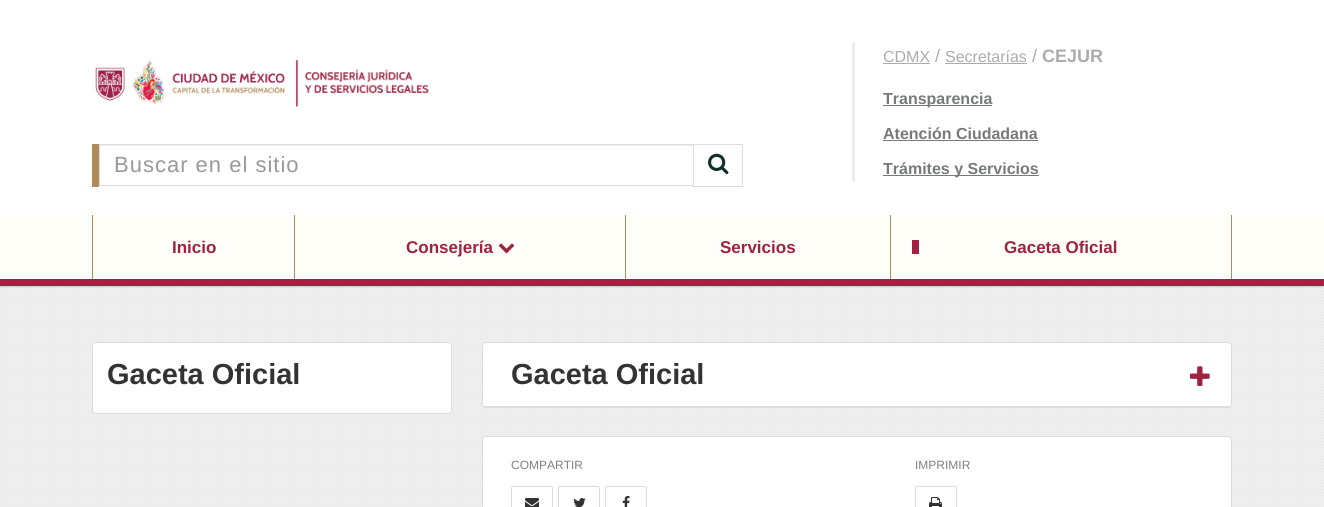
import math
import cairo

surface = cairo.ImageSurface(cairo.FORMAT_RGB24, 1324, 507)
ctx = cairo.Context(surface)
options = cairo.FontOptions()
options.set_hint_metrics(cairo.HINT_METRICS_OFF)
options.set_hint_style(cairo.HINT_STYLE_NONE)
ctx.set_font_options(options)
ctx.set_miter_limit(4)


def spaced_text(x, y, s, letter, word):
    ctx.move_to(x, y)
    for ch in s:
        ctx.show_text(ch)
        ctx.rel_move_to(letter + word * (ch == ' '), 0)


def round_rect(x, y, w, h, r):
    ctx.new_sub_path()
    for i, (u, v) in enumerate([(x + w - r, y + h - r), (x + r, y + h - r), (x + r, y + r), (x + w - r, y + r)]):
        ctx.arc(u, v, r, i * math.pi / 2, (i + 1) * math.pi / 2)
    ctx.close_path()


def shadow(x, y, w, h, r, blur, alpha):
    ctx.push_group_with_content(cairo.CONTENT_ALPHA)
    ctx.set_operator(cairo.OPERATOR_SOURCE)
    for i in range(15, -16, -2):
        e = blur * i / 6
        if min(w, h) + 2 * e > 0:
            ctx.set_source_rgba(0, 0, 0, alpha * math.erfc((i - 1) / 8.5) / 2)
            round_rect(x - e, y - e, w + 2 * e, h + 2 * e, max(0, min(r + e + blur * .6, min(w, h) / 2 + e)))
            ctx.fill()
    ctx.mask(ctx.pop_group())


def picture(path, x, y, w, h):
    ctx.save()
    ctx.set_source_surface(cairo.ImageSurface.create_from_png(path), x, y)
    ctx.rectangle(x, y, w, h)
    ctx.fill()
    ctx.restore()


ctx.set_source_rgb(1, 1, 1)
ctx.paint()
picture("img1.png", 95, 60, 204, 47)
picture("img2.png", 305, 69, 124, 25)
ctx.set_source_rgb(0.694, 0.549, 0.357)
ctx.rectangle(92, 144, 7, 43)
ctx.fill()
ctx.set_source_rgb(0.925, 0.925, 0.925)
ctx.rectangle(100, 145, 593, 1)
ctx.fill()
ctx.rectangle(693.5, 144.5, 49, 42)
ctx.set_source_rgb(0.867, 0.867, 0.867)
ctx.set_line_width(1)
ctx.stroke()
ctx.rectangle(99.5, 144.5, 594, 41)
ctx.stroke()
ctx.select_font_face("Liberation Sans")
ctx.set_font_size(22)
ctx.set_source_rgb(0.6, 0.6, 0.6)
spaced_text(114, 172, "Buscar en el sitio", 1, 0)
picture("img3.png", 708, 153, 21, 22)
ctx.set_source_rgb(0.918, 0.918, 0.918)
ctx.rectangle(852, 42, 3, 140)
ctx.fill()
ctx.set_font_size(16)
ctx.set_source_rgb(0.667, 0.675, 0.678)
ctx.move_to(883, 62)
ctx.show_text("CDMX")
ctx.rectangle(883, 63, 47, 1)
ctx.fill()
ctx.set_font_size(18)
ctx.move_to(935, 62)
ctx.show_text("/")
ctx.set_font_size(16)
ctx.move_to(945, 62)
ctx.show_text("Secretarías")
ctx.rectangle(945, 63, 82, 1)
ctx.fill()
ctx.set_font_size(18)
ctx.move_to(1032, 62)
ctx.show_text("/")
ctx.select_font_face("Liberation Sans", cairo.FONT_SLANT_NORMAL, cairo.FONT_WEIGHT_BOLD)
ctx.move_to(1042, 62)
ctx.show_text("CEJUR")
ctx.set_source_rgb(0.467, 0.475, 0.482)
ctx.rectangle(883, 105, 109, 1)
ctx.fill()
ctx.set_font_size(16)
ctx.move_to(883, 104)
ctx.show_text("Transparencia")
ctx.move_to(883, 139)
ctx.show_text("Atención Ciudadana")
ctx.rectangle(883, 140, 155, 1)
ctx.fill()
ctx.rectangle(883, 175, 156, 1)
ctx.fill()
ctx.move_to(883, 174)
ctx.show_text("Trámites y Servicios")
ctx.set_source_rgb(0.937, 0.937, 0.937)
ctx.rectangle(0, 286, 1324, 221)
ctx.fill()
picture("img4.png", 0, 287, 1324, 5)
ctx.set_source_rgb(0.8, 0.8, 0.8)
shadow(-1, 216, 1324, 71, 0, 0.5, 1)
ctx.set_source_rgb(1, 0.996, 0.969)
ctx.rectangle(0, 215, 1324, 64)
ctx.fill()
ctx.set_source_rgb(0.624, 0.133, 0.255)
ctx.rectangle(0, 279, 1324, 7)
ctx.fill()
ctx.set_source_rgb(0.694, 0.549, 0.357)
ctx.rectangle(92, 215, 1, 64)
ctx.fill()
ctx.set_font_size(17)
ctx.set_source_rgb(0.624, 0.133, 0.255)
ctx.move_to(172, 253)
ctx.show_text("Inicio")
ctx.set_source_rgb(0.694, 0.549, 0.357)
ctx.rectangle(294, 215, 1, 64)
ctx.fill()
ctx.set_source_rgb(0.624, 0.133, 0.255)
ctx.move_to(406, 253)
ctx.show_text("Consejería")
picture("img5.png", 498, 243, 17, 11)
ctx.set_source_rgb(0.694, 0.549, 0.357)
ctx.rectangle(625, 215, 1, 64)
ctx.fill()
ctx.set_source_rgb(0.624, 0.133, 0.255)
ctx.move_to(720, 253)
ctx.show_text("Servicios")
ctx.set_source_rgb(0.694, 0.549, 0.357)
ctx.rectangle(1231, 215, 1, 64)
ctx.fill()
ctx.rectangle(890, 215, 1, 64)
ctx.fill()
ctx.set_source_rgb(0.624, 0.133, 0.255)
ctx.rectangle(912, 240, 7, 14)
ctx.fill()
ctx.move_to(1004, 253)
ctx.show_text("Gaceta Oficial")
picture("img6.png", 0, 293, 1324, 214)
ctx.set_source_rgb(1, 1, 1)
round_rect(92.5, 342.5, 359, 71, 3.5)
ctx.fill_preserve()
ctx.set_source_rgb(0.867, 0.867, 0.867)
ctx.stroke()
ctx.set_font_size(29)
ctx.set_source_rgb(0.2, 0.2, 0.2)
ctx.move_to(107, 384)
ctx.show_text("Gaceta Oficial")
ctx.set_source_rgb(1, 1, 1)
round_rect(482.5, 342.5, 749, 65, 3.5)
ctx.fill_preserve()
ctx.set_source_rgb(0.867, 0.867, 0.867)
ctx.stroke()
ctx.rectangle(483, 406, 748, 1)
ctx.fill()
ctx.set_source_rgb(0.2, 0.2, 0.2)
ctx.move_to(511, 384)
ctx.show_text("Gaceta Oficial")
picture("img7.png", 1190, 366, 20, 20)
ctx.set_source_rgb(1, 1, 1)
round_rect(482.5, 436.5, 749, 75, 3.5)
ctx.fill_preserve()
ctx.set_source_rgb(0.867, 0.867, 0.867)
ctx.stroke()
ctx.select_font_face("Liberation Sans")
ctx.set_font_size(12)
ctx.set_source_rgb(0.502, 0.502, 0.502)
ctx.move_to(511, 469)
ctx.show_text("COMPARTIR")
round_rect(511.5, 486.5, 41, 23, 1.5)
ctx.set_source_rgb(0.867, 0.867, 0.867)
ctx.stroke()
picture("img8.png", 525, 498, 14, 9)
round_rect(558.5, 486.5, 41, 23, 1.5)
ctx.stroke()
picture("img9.png", 573, 498, 13, 9)
round_rect(605.5, 486.5, 41, 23, 1.5)
ctx.stroke()
picture("img10.png", 622, 496, 8, 11)
ctx.set_source_rgb(0.502, 0.502, 0.502)
ctx.move_to(915, 469)
ctx.show_text("IMPRIMIR")
round_rect(915.5, 486.5, 41, 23, 1.5)
ctx.set_source_rgb(0.867, 0.867, 0.867)
ctx.stroke()
picture("img11.png", 929, 497, 13, 10)
surface.write_to_png("page.png")
